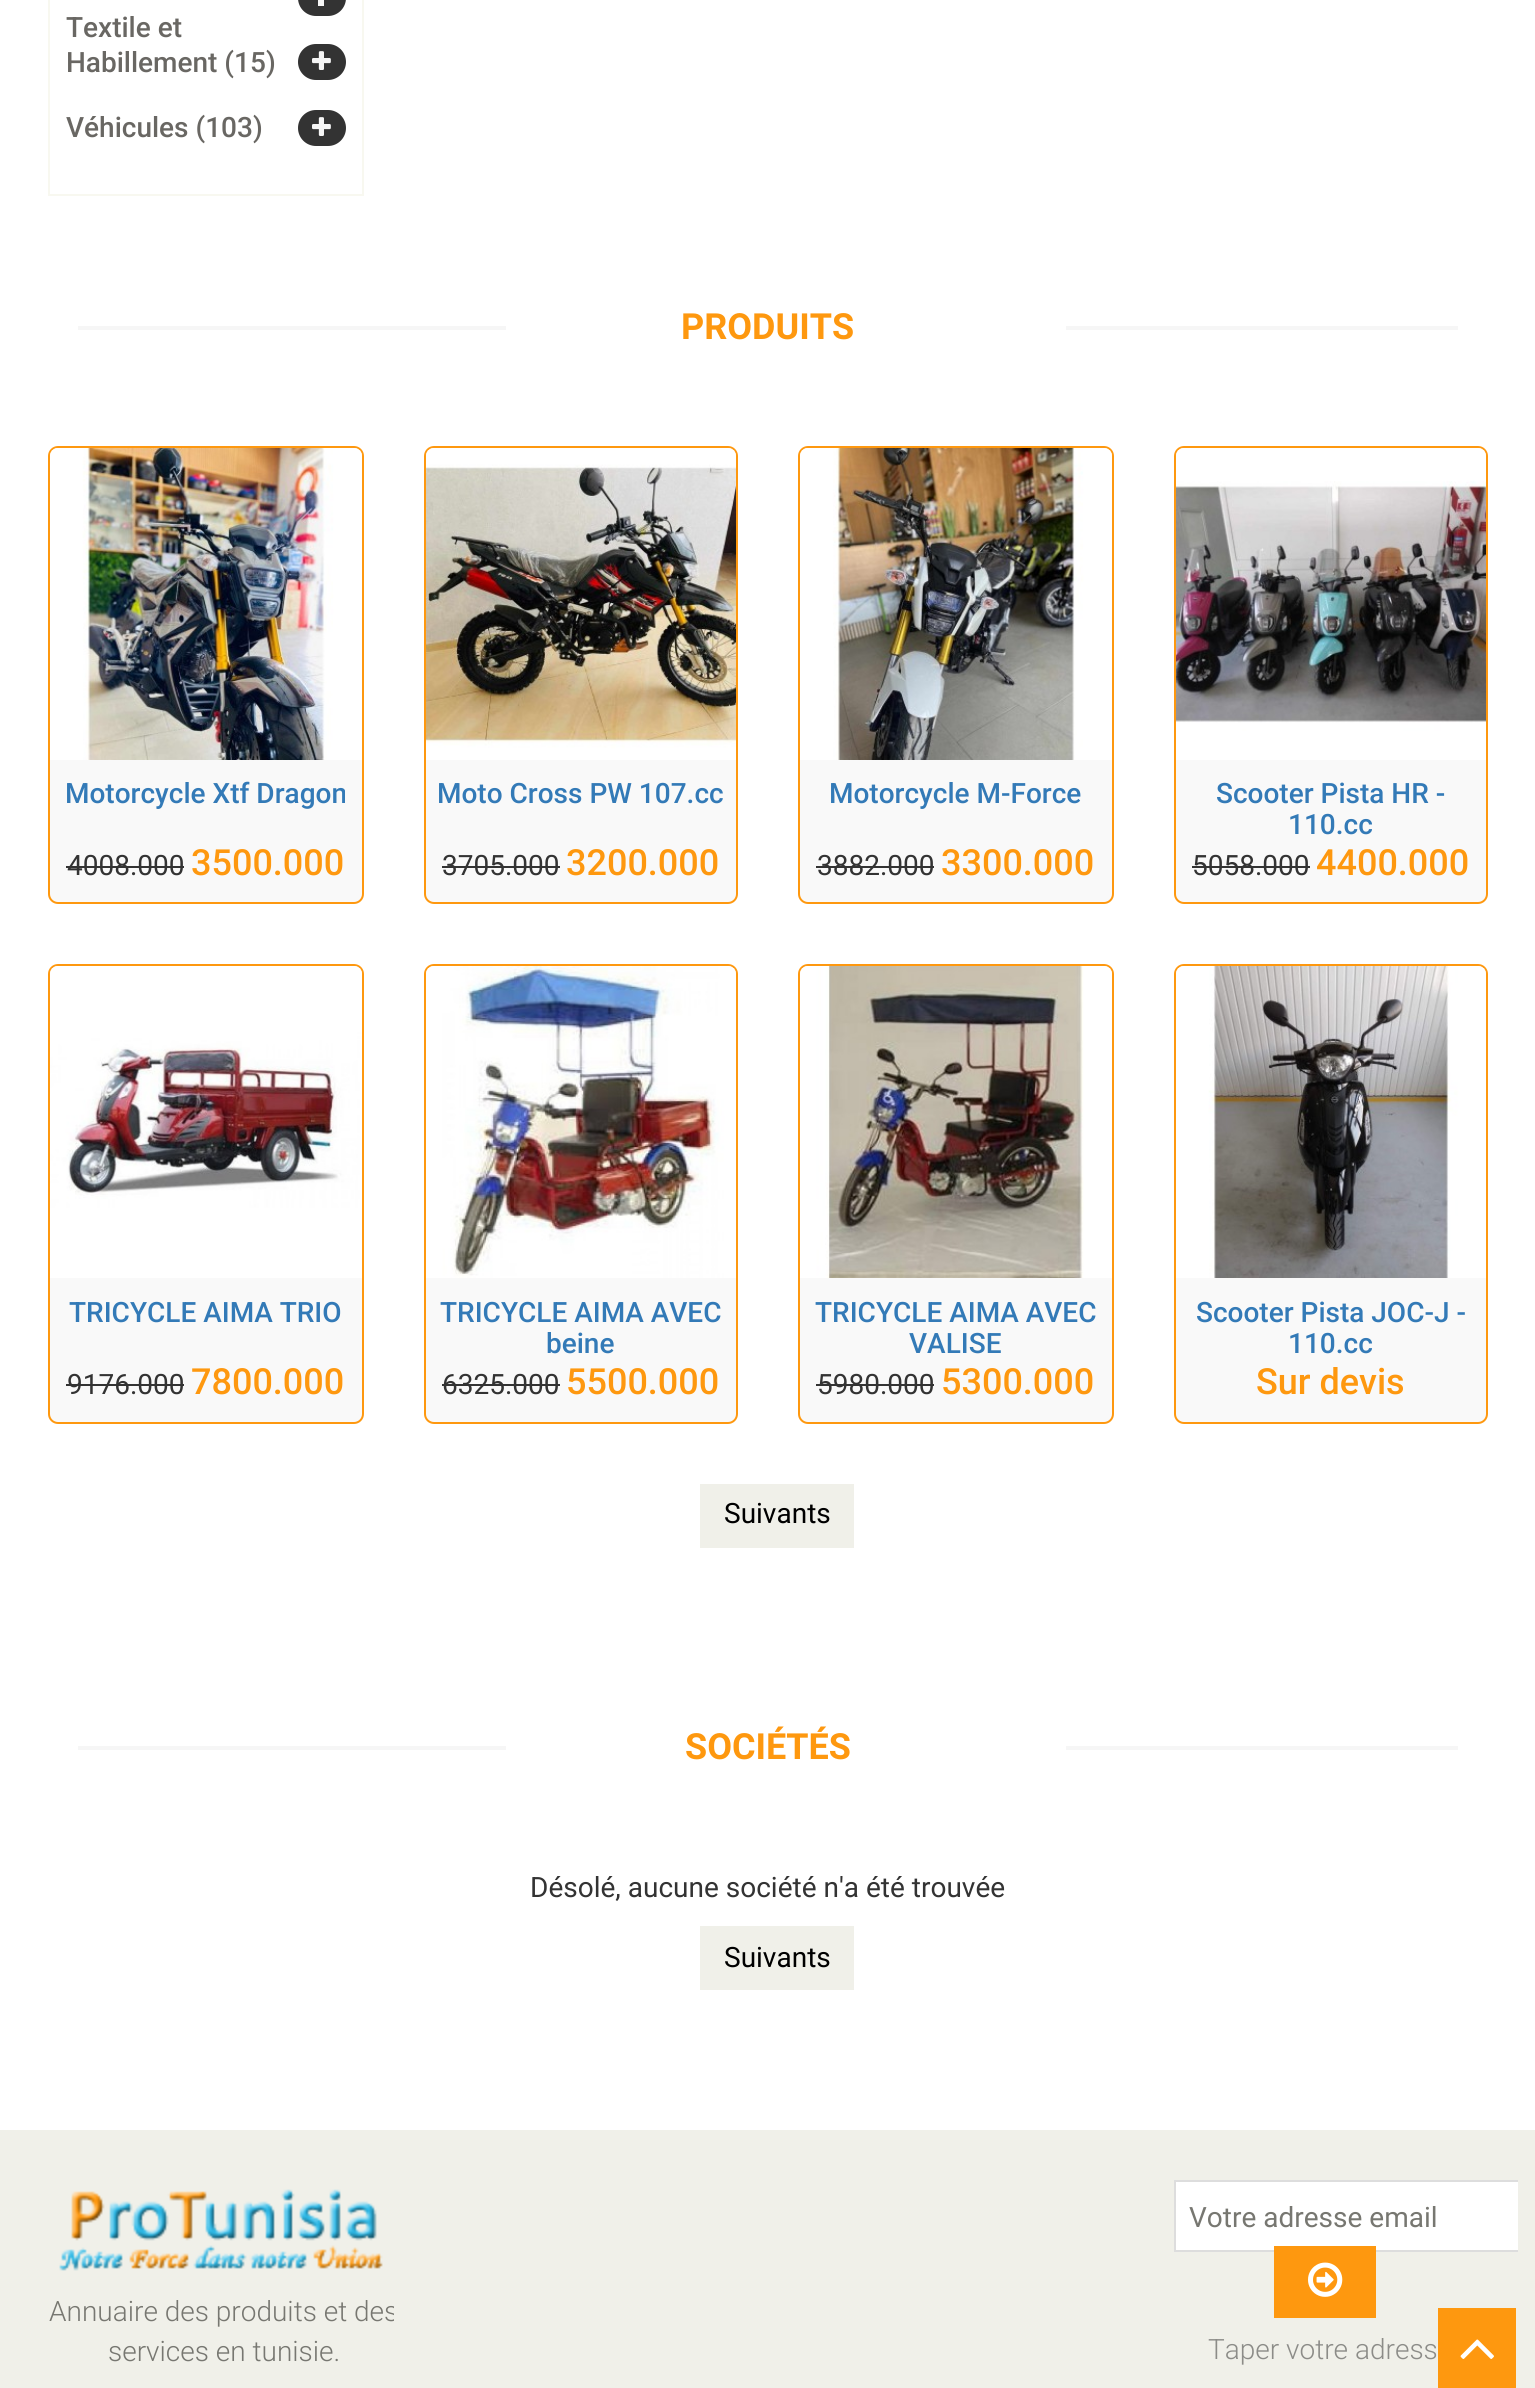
import math
import cairo

surface = cairo.ImageSurface(cairo.FORMAT_RGB24, 1535, 2388)
ctx = cairo.Context(surface)
options = cairo.FontOptions()
options.set_hint_metrics(cairo.HINT_METRICS_OFF)
options.set_hint_style(cairo.HINT_STYLE_NONE)
ctx.set_font_options(options)
ctx.set_miter_limit(4)


def round_rect(x, y, w, h, r):
    ctx.new_sub_path()
    for i, (u, v) in enumerate([(x + w - r, y + h - r), (x + r, y + h - r), (x + r, y + r), (x + w - r, y + r)]):
        ctx.arc(u, v, r, i * math.pi / 2, (i + 1) * math.pi / 2)
    ctx.close_path()


def picture(path, x, y, w, h):
    ctx.save()
    ctx.set_source_surface(cairo.ImageSurface.create_from_png(path), x, y)
    ctx.rectangle(x, y, w, h)
    ctx.fill()
    ctx.restore()


ctx.set_source_rgb(1, 1, 1)
ctx.paint()
ctx.rectangle(49, -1, 314, 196)
ctx.set_source_rgb(0.969, 0.969, 0.941)
ctx.stroke()
ctx.set_source_rgb(0.2, 0.2, 0.2)
round_rect(298, -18, 48, 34, 18)
ctx.fill()
ctx.set_source_rgb(0.961, 0.961, 0.961)
ctx.rectangle(318, 0, 6, 6)
ctx.fill()
ctx.select_font_face("Roboto Medium")
ctx.set_font_size(28)
ctx.set_source_rgb(0.412, 0.404, 0.388)
ctx.move_to(66, 37)
ctx.show_text("Textile et")
ctx.move_to(66, 72)
ctx.show_text("Habillement (15)")
ctx.set_source_rgb(0.2, 0.2, 0.2)
round_rect(298, 44, 48, 36, 18)
ctx.fill()
picture("img1.png", 312, 51, 19, 19)
ctx.set_source_rgb(0.412, 0.404, 0.388)
ctx.move_to(66, 137)
ctx.show_text("Véhicules (103)")
ctx.set_source_rgb(0.2, 0.2, 0.2)
round_rect(298, 110, 48, 36, 18)
ctx.fill()
picture("img1.png", 312, 117, 19, 19)
ctx.set_source_rgb(0.961, 0.961, 0.961)
ctx.rectangle(78, 326, 1380, 4)
ctx.fill()
ctx.set_source_rgb(1, 1, 1)
ctx.rectangle(506, 326, 560, 4)
ctx.fill()
ctx.select_font_face("Roboto", cairo.FONT_SLANT_NORMAL, cairo.FONT_WEIGHT_BOLD)
ctx.set_font_size(36)
ctx.set_source_rgb(0.996, 0.596, 0.059)
ctx.move_to(681, 339)
ctx.show_text("PRODUITS")
ctx.set_source_rgb(0.973, 0.973, 0.973)
round_rect(49, 447, 314, 456, 9)
ctx.fill_preserve()
ctx.set_source_rgb(0.996, 0.596, 0.059)
ctx.stroke()
picture("img2.png", 50, 448, 312, 312)
ctx.select_font_face("Roboto Medium")
ctx.set_font_size(28)
ctx.set_source_rgb(0.2, 0.478, 0.718)
ctx.move_to(65, 803)
ctx.show_text("Motorcycle Xtf Dragon")
ctx.select_font_face("Roboto")
ctx.set_source_rgb(0.2, 0.2, 0.2)
ctx.move_to(67, 875)
ctx.show_text("4008.000")
ctx.rectangle(66, 866, 118, 2)
ctx.fill()
ctx.select_font_face("Roboto Medium")
ctx.set_font_size(36)
ctx.set_source_rgb(0.996, 0.596, 0.059)
ctx.move_to(191, 875)
ctx.show_text("3500.000")
ctx.set_source_rgb(0.973, 0.973, 0.973)
round_rect(425, 447, 312, 456, 9)
ctx.fill_preserve()
ctx.set_source_rgb(0.996, 0.596, 0.059)
ctx.stroke()
picture("img3.png", 426, 448, 310, 312)
ctx.set_font_size(28)
ctx.set_source_rgb(0.2, 0.478, 0.718)
ctx.move_to(437, 803)
ctx.show_text("Moto Cross PW 107.cc")
ctx.select_font_face("Roboto")
ctx.set_source_rgb(0.2, 0.2, 0.2)
ctx.move_to(442, 875)
ctx.show_text("3705.000")
ctx.rectangle(442, 866, 118, 2)
ctx.fill()
ctx.select_font_face("Roboto Medium")
ctx.set_font_size(36)
ctx.set_source_rgb(0.996, 0.596, 0.059)
ctx.move_to(566, 875)
ctx.show_text("3200.000")
ctx.set_source_rgb(0.973, 0.973, 0.973)
round_rect(799, 447, 314, 456, 9)
ctx.fill_preserve()
ctx.set_source_rgb(0.996, 0.596, 0.059)
ctx.stroke()
picture("img4.png", 800, 448, 312, 312)
ctx.set_font_size(28)
ctx.set_source_rgb(0.2, 0.478, 0.718)
ctx.move_to(829, 803)
ctx.show_text("Motorcycle M-Force")
ctx.select_font_face("Roboto")
ctx.set_source_rgb(0.2, 0.2, 0.2)
ctx.move_to(817, 875)
ctx.show_text("3882.000")
ctx.rectangle(816, 866, 118, 2)
ctx.fill()
ctx.select_font_face("Roboto Medium")
ctx.set_font_size(36)
ctx.set_source_rgb(0.996, 0.596, 0.059)
ctx.move_to(941, 875)
ctx.show_text("3300.000")
ctx.set_source_rgb(0.973, 0.973, 0.973)
round_rect(1175, 447, 312, 456, 9)
ctx.fill_preserve()
ctx.set_source_rgb(0.996, 0.596, 0.059)
ctx.stroke()
picture("img5.png", 1176, 448, 310, 312)
ctx.set_font_size(28)
ctx.set_source_rgb(0.2, 0.478, 0.718)
ctx.move_to(1216, 803)
ctx.show_text("Scooter Pista HR -")
ctx.move_to(1288, 834)
ctx.show_text("110.cc")
ctx.select_font_face("Roboto")
ctx.set_source_rgb(0.2, 0.2, 0.2)
ctx.move_to(1192, 875)
ctx.show_text("5058.000")
ctx.rectangle(1192, 866, 118, 2)
ctx.fill()
ctx.select_font_face("Roboto Medium")
ctx.set_font_size(36)
ctx.set_source_rgb(0.996, 0.596, 0.059)
ctx.move_to(1316, 875)
ctx.show_text("4400.000")
ctx.set_source_rgb(0.973, 0.973, 0.973)
round_rect(49, 965, 314, 458, 9)
ctx.fill_preserve()
ctx.set_source_rgb(0.996, 0.596, 0.059)
ctx.stroke()
picture("img6.png", 50, 966, 312, 312)
ctx.set_font_size(28)
ctx.set_source_rgb(0.2, 0.478, 0.718)
ctx.move_to(69, 1322)
ctx.show_text("TRICYCLE AIMA TRIO")
ctx.select_font_face("Roboto")
ctx.set_source_rgb(0.2, 0.2, 0.2)
ctx.move_to(67, 1394)
ctx.show_text("9176.000")
ctx.rectangle(66, 1384, 118, 2)
ctx.fill()
ctx.select_font_face("Roboto Medium")
ctx.set_font_size(36)
ctx.set_source_rgb(0.996, 0.596, 0.059)
ctx.move_to(191, 1394)
ctx.show_text("7800.000")
ctx.set_source_rgb(0.973, 0.973, 0.973)
round_rect(425, 965, 312, 458, 9)
ctx.fill_preserve()
ctx.set_source_rgb(0.996, 0.596, 0.059)
ctx.stroke()
picture("img7.png", 426, 966, 310, 312)
ctx.set_font_size(28)
ctx.set_source_rgb(0.2, 0.478, 0.718)
ctx.move_to(440, 1322)
ctx.show_text("TRICYCLE AIMA AVEC")
ctx.move_to(546, 1353)
ctx.show_text("beine")
ctx.select_font_face("Roboto")
ctx.set_source_rgb(0.2, 0.2, 0.2)
ctx.move_to(442, 1394)
ctx.show_text("6325.000")
ctx.rectangle(442, 1384, 118, 2)
ctx.fill()
ctx.select_font_face("Roboto Medium")
ctx.set_font_size(36)
ctx.set_source_rgb(0.996, 0.596, 0.059)
ctx.move_to(566, 1394)
ctx.show_text("5500.000")
ctx.set_source_rgb(0.973, 0.973, 0.973)
round_rect(799, 965, 314, 458, 9)
ctx.fill_preserve()
ctx.set_source_rgb(0.996, 0.596, 0.059)
ctx.stroke()
picture("img8.png", 800, 966, 312, 312)
ctx.set_font_size(28)
ctx.set_source_rgb(0.2, 0.478, 0.718)
ctx.move_to(815, 1322)
ctx.show_text("TRICYCLE AIMA AVEC")
ctx.move_to(909, 1353)
ctx.show_text("VALISE")
ctx.select_font_face("Roboto")
ctx.set_source_rgb(0.2, 0.2, 0.2)
ctx.move_to(817, 1394)
ctx.show_text("5980.000")
ctx.rectangle(816, 1384, 118, 2)
ctx.fill()
ctx.select_font_face("Roboto Medium")
ctx.set_font_size(36)
ctx.set_source_rgb(0.996, 0.596, 0.059)
ctx.move_to(941, 1394)
ctx.show_text("5300.000")
ctx.set_source_rgb(0.973, 0.973, 0.973)
round_rect(1175, 965, 312, 458, 9)
ctx.fill_preserve()
ctx.set_source_rgb(0.996, 0.596, 0.059)
ctx.stroke()
picture("img9.png", 1176, 966, 310, 312)
ctx.set_font_size(28)
ctx.set_source_rgb(0.2, 0.478, 0.718)
ctx.move_to(1196, 1322)
ctx.show_text("Scooter Pista JOC-J -")
ctx.move_to(1288, 1353)
ctx.show_text("110.cc")
ctx.set_font_size(36)
ctx.set_source_rgb(0.996, 0.596, 0.059)
ctx.move_to(1256, 1394)
ctx.show_text("Sur devis")
ctx.set_source_rgb(0.941, 0.941, 0.914)
ctx.rectangle(700, 1484, 154, 64)
ctx.fill()
ctx.select_font_face("Roboto")
ctx.set_font_size(28)
ctx.set_source_rgb(0, 0, 0)
ctx.move_to(724, 1523)
ctx.show_text("Suivants")
ctx.set_source_rgb(0.961, 0.961, 0.961)
ctx.rectangle(78, 1746, 1380, 4)
ctx.fill()
ctx.set_source_rgb(1, 1, 1)
ctx.rectangle(506, 1746, 560, 4)
ctx.fill()
ctx.select_font_face("Roboto", cairo.FONT_SLANT_NORMAL, cairo.FONT_WEIGHT_BOLD)
ctx.set_font_size(36)
ctx.set_source_rgb(0.996, 0.596, 0.059)
ctx.move_to(685, 1759)
ctx.show_text("SOCIÉTÉS")
ctx.select_font_face("Roboto")
ctx.set_font_size(28)
ctx.set_source_rgb(0.2, 0.2, 0.2)
ctx.move_to(530, 1897)
ctx.show_text("Désolé, aucune société n'a été trouvée")
ctx.set_source_rgb(0.941, 0.941, 0.914)
ctx.rectangle(700, 1926, 154, 64)
ctx.fill()
ctx.set_source_rgb(0, 0, 0)
ctx.move_to(724, 1967)
ctx.show_text("Suivants")
ctx.set_source_rgb(0.941, 0.941, 0.914)
ctx.rectangle(0, 2130, 1535, 258)
ctx.fill()
picture("img10.png", 59, 2189, 324, 82)
ctx.save()
ctx.rectangle(18, 2130, 376, 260)
ctx.clip()
ctx.select_font_face("Roboto Light")
ctx.set_source_rgb(0.467, 0.467, 0.443)
ctx.move_to(49, 2321)
ctx.show_text("Annuaire des produits et des")
ctx.restore()
ctx.select_font_face("Roboto Light")
ctx.set_source_rgb(0.467, 0.467, 0.443)
ctx.move_to(108, 2361)
ctx.show_text("services en tunisie.")
ctx.set_source_rgb(1, 1, 1)
ctx.rectangle(1176, 2182, 342, 68)
ctx.fill()
ctx.save()
ctx.rectangle(1144, 2130, 374, 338)
ctx.clip()
ctx.rectangle(1175, 2181, 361, 70)
ctx.set_source_rgb(0.867, 0.867, 0.867)
ctx.stroke()
ctx.restore()
ctx.select_font_face("Roboto")
ctx.set_source_rgb(0.467, 0.467, 0.443)
ctx.move_to(1189, 2227)
ctx.show_text("Votre adresse email")
ctx.set_source_rgb(0.996, 0.596, 0.059)
ctx.rectangle(1274, 2246, 102, 72)
ctx.fill()
picture("img11.png", 1308, 2262, 35, 35)
ctx.select_font_face("Roboto Light")
ctx.set_source_rgb(0.549, 0.549, 0.533)
ctx.move_to(1208, 2359)
ctx.show_text("Taper votre adress")
ctx.set_source_rgb(0.996, 0.596, 0.059)
ctx.rectangle(1438, 2308, 78, 80)
ctx.fill()
picture("img12.png", 1460, 2339, 34, 20)
surface.write_to_png("page.png")
